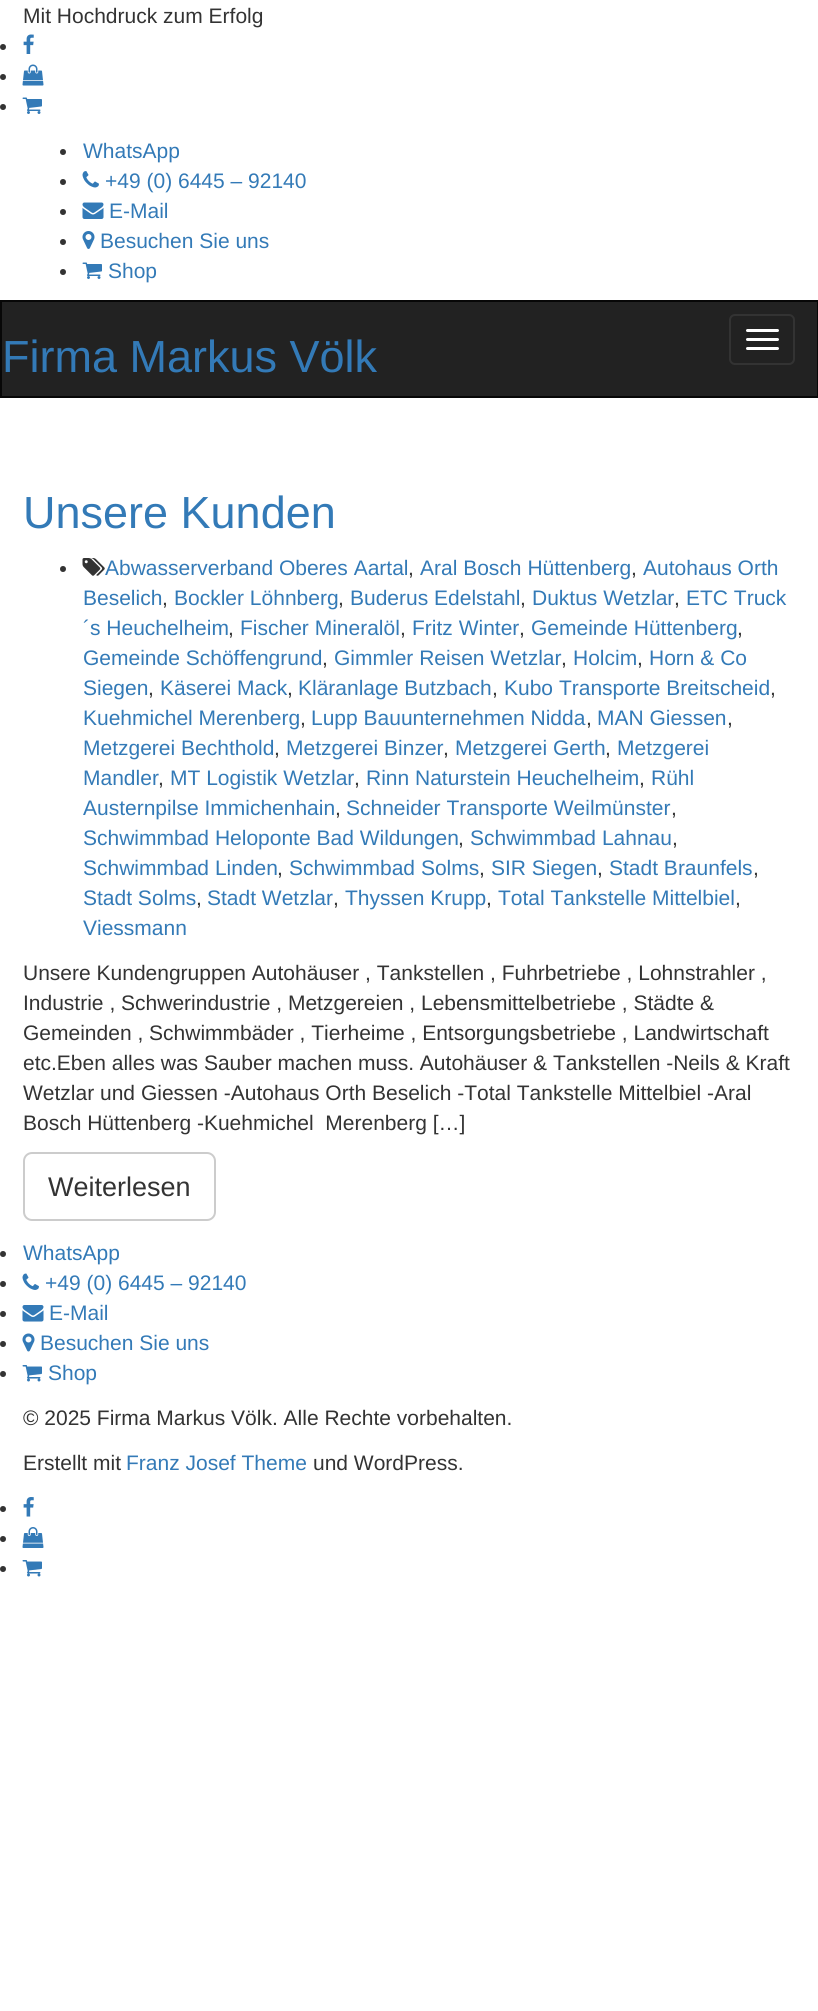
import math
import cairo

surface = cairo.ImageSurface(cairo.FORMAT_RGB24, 818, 2011)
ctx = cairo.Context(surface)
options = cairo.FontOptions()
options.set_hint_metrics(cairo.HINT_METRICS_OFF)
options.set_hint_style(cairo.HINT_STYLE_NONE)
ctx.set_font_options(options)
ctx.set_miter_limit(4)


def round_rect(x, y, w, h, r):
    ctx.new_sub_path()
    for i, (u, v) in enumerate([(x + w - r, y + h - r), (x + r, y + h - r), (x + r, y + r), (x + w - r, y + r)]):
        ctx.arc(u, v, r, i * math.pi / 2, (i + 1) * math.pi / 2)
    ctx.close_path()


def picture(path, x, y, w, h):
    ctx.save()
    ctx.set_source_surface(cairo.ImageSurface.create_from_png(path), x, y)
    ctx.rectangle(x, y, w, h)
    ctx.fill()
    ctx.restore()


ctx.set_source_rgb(1, 1, 1)
ctx.paint()
ctx.select_font_face("Liberation Sans")
ctx.set_font_size(21)
ctx.set_source_rgb(0.2, 0.2, 0.2)
ctx.move_to(23, 23)
ctx.show_text("Mit Hochdruck zum Erfolg")
ctx.new_path()
ctx.arc(3, 47, 3, 0, 2 * math.pi)
ctx.fill()
picture("img1.png", 23, 34, 11, 20)
ctx.arc(3, 77, 3, 0, 2 * math.pi)
ctx.fill()
picture("img2.png", 22, 64, 22, 22)
ctx.arc(3, 107, 3, 0, 2 * math.pi)
ctx.fill()
picture("img3.png", 22, 97, 20, 17)
ctx.arc(63, 152, 3, 0, 2 * math.pi)
ctx.fill()
ctx.set_source_rgb(0.2, 0.478, 0.718)
ctx.move_to(83, 158)
ctx.show_text("WhatsApp")
ctx.set_source_rgb(0.2, 0.2, 0.2)
ctx.new_path()
ctx.arc(63, 182, 3, 0, 2 * math.pi)
ctx.fill()
picture("img4.png", 82, 171, 17, 17)
ctx.set_source_rgb(0.2, 0.478, 0.718)
ctx.move_to(105, 188)
ctx.show_text("+49 (0) 6445 – 92140")
ctx.set_source_rgb(0.2, 0.2, 0.2)
ctx.new_path()
ctx.arc(63, 212, 3, 0, 2 * math.pi)
ctx.fill()
picture("img5.png", 82, 202, 22, 17)
ctx.set_source_rgb(0.2, 0.478, 0.718)
ctx.move_to(109, 218)
ctx.show_text("E-Mail")
ctx.set_source_rgb(0.2, 0.2, 0.2)
ctx.new_path()
ctx.arc(63, 242, 3, 0, 2 * math.pi)
ctx.fill()
picture("img6.png", 82, 231, 13, 18)
ctx.set_source_rgb(0.2, 0.478, 0.718)
ctx.move_to(100, 248)
ctx.show_text("Besuchen Sie uns")
ctx.set_source_rgb(0.2, 0.2, 0.2)
ctx.new_path()
ctx.arc(63, 272, 3, 0, 2 * math.pi)
ctx.fill()
picture("img3.png", 82, 262, 20, 17)
ctx.set_source_rgb(0.2, 0.478, 0.718)
ctx.move_to(108, 278)
ctx.show_text("Shop")
ctx.set_source_rgb(0.133, 0.133, 0.133)
ctx.rectangle(1, 301, 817, 96)
ctx.fill_preserve()
ctx.set_source_rgb(0.031, 0.031, 0.031)
ctx.stroke()
ctx.set_font_size(45)
ctx.set_source_rgb(0.2, 0.478, 0.718)
ctx.move_to(2, 372)
ctx.show_text("Firma Markus Völk")
round_rect(730, 315, 64, 49, 5)
ctx.set_source_rgb(0.2, 0.2, 0.2)
ctx.stroke()
ctx.set_source_rgb(1, 1, 1)
round_rect(746, 329, 33, 3, 1.5)
ctx.fill()
round_rect(746, 338, 33, 3, 1.5)
ctx.fill()
round_rect(746, 347, 33, 3, 1.5)
ctx.fill()
ctx.set_source_rgb(0.2, 0.478, 0.718)
ctx.move_to(23, 528)
ctx.show_text("Unsere Kunden")
ctx.set_source_rgb(0.2, 0.2, 0.2)
ctx.new_path()
ctx.arc(63, 569, 3, 0, 2 * math.pi)
ctx.fill()
picture("img7.png", 82, 558, 23, 18)
ctx.set_font_size(21)
ctx.set_source_rgb(0.2, 0.478, 0.718)
ctx.move_to(105, 575)
ctx.show_text("Abwasserverband Oberes Aartal")
ctx.move_to(420, 575)
ctx.show_text("Aral Bosch Hüttenberg")
ctx.move_to(643, 575)
ctx.show_text("Autohaus Orth")
ctx.set_source_rgb(0.2, 0.2, 0.2)
ctx.move_to(408, 575)
ctx.show_text(",")
ctx.move_to(631, 575)
ctx.show_text(",")
ctx.set_source_rgb(0.2, 0.478, 0.718)
ctx.move_to(83, 605)
ctx.show_text("Beselich")
ctx.set_source_rgb(0.2, 0.2, 0.2)
ctx.move_to(162, 605)
ctx.show_text(",")
ctx.set_source_rgb(0.2, 0.478, 0.718)
ctx.move_to(174, 605)
ctx.show_text("Bockler Löhnberg")
ctx.set_source_rgb(0.2, 0.2, 0.2)
ctx.move_to(338, 605)
ctx.show_text(",")
ctx.set_source_rgb(0.2, 0.478, 0.718)
ctx.move_to(350, 605)
ctx.show_text("Buderus Edelstahl")
ctx.set_source_rgb(0.2, 0.2, 0.2)
ctx.move_to(520, 605)
ctx.show_text(",")
ctx.set_source_rgb(0.2, 0.478, 0.718)
ctx.move_to(532, 605)
ctx.show_text("Duktus Wetzlar")
ctx.set_source_rgb(0.2, 0.2, 0.2)
ctx.move_to(674, 605)
ctx.show_text(",")
ctx.set_source_rgb(0.2, 0.478, 0.718)
ctx.move_to(686, 605)
ctx.show_text("ETC Truck")
ctx.move_to(83, 635)
ctx.show_text("´s Heuchelheim")
ctx.set_source_rgb(0.2, 0.2, 0.2)
ctx.move_to(228, 635)
ctx.show_text(",")
ctx.set_source_rgb(0.2, 0.478, 0.718)
ctx.move_to(240, 635)
ctx.show_text("Fischer Mineralöl")
ctx.set_source_rgb(0.2, 0.2, 0.2)
ctx.move_to(400, 635)
ctx.show_text(",")
ctx.set_source_rgb(0.2, 0.478, 0.718)
ctx.move_to(412, 635)
ctx.show_text("Fritz Winter")
ctx.set_source_rgb(0.2, 0.2, 0.2)
ctx.move_to(519, 635)
ctx.show_text(",")
ctx.set_source_rgb(0.2, 0.478, 0.718)
ctx.move_to(531, 635)
ctx.show_text("Gemeinde Hüttenberg")
ctx.set_source_rgb(0.2, 0.2, 0.2)
ctx.move_to(737, 635)
ctx.show_text(",")
ctx.set_source_rgb(0.2, 0.478, 0.718)
ctx.move_to(83, 665)
ctx.show_text("Gemeinde Schöffengrund")
ctx.set_source_rgb(0.2, 0.2, 0.2)
ctx.move_to(322, 665)
ctx.show_text(",")
ctx.set_source_rgb(0.2, 0.478, 0.718)
ctx.move_to(334, 665)
ctx.show_text("Gimmler Reisen Wetzlar")
ctx.set_source_rgb(0.2, 0.2, 0.2)
ctx.move_to(561, 665)
ctx.show_text(",")
ctx.set_source_rgb(0.2, 0.478, 0.718)
ctx.move_to(573, 665)
ctx.show_text("Holcim")
ctx.set_source_rgb(0.2, 0.2, 0.2)
ctx.move_to(637, 665)
ctx.show_text(",")
ctx.set_source_rgb(0.2, 0.478, 0.718)
ctx.move_to(649, 665)
ctx.show_text("Horn & Co")
ctx.move_to(83, 695)
ctx.show_text("Siegen")
ctx.set_source_rgb(0.2, 0.2, 0.2)
ctx.move_to(148, 695)
ctx.show_text(",")
ctx.set_source_rgb(0.2, 0.478, 0.718)
ctx.move_to(160, 695)
ctx.show_text("Käserei Mack")
ctx.set_source_rgb(0.2, 0.2, 0.2)
ctx.move_to(287, 695)
ctx.show_text(",")
ctx.set_source_rgb(0.2, 0.478, 0.718)
ctx.move_to(298, 695)
ctx.show_text("Kläranlage Butzbach")
ctx.set_source_rgb(0.2, 0.2, 0.2)
ctx.move_to(492, 695)
ctx.show_text(",")
ctx.set_source_rgb(0.2, 0.478, 0.718)
ctx.move_to(504, 695)
ctx.show_text("Kubo Transporte Breitscheid")
ctx.set_source_rgb(0.2, 0.2, 0.2)
ctx.move_to(770, 695)
ctx.show_text(",")
ctx.set_source_rgb(0.2, 0.478, 0.718)
ctx.move_to(83, 725)
ctx.show_text("Kuehmichel Merenberg")
ctx.set_source_rgb(0.2, 0.2, 0.2)
ctx.move_to(300, 725)
ctx.show_text(",")
ctx.set_source_rgb(0.2, 0.478, 0.718)
ctx.move_to(311, 725)
ctx.show_text("Lupp Bauunternehmen Nidda")
ctx.set_source_rgb(0.2, 0.2, 0.2)
ctx.move_to(586, 725)
ctx.show_text(",")
ctx.set_source_rgb(0.2, 0.478, 0.718)
ctx.move_to(597, 725)
ctx.show_text("MAN Giessen")
ctx.set_source_rgb(0.2, 0.2, 0.2)
ctx.move_to(727, 725)
ctx.show_text(",")
ctx.set_source_rgb(0.2, 0.478, 0.718)
ctx.move_to(83, 755)
ctx.show_text("Metzgerei Bechthold")
ctx.set_source_rgb(0.2, 0.2, 0.2)
ctx.move_to(274, 755)
ctx.show_text(",")
ctx.set_source_rgb(0.2, 0.478, 0.718)
ctx.move_to(286, 755)
ctx.show_text("Metzgerei Binzer")
ctx.set_source_rgb(0.2, 0.2, 0.2)
ctx.move_to(443, 755)
ctx.show_text(",")
ctx.set_source_rgb(0.2, 0.478, 0.718)
ctx.move_to(455, 755)
ctx.show_text("Metzgerei Gerth")
ctx.set_source_rgb(0.2, 0.2, 0.2)
ctx.move_to(605, 755)
ctx.show_text(",")
ctx.set_source_rgb(0.2, 0.478, 0.718)
ctx.move_to(617, 755)
ctx.show_text("Metzgerei")
ctx.move_to(83, 785)
ctx.show_text("Mandler")
ctx.set_source_rgb(0.2, 0.2, 0.2)
ctx.move_to(158, 785)
ctx.show_text(",")
ctx.set_source_rgb(0.2, 0.478, 0.718)
ctx.move_to(170, 785)
ctx.show_text("MT Logistik Wetzlar")
ctx.set_source_rgb(0.2, 0.2, 0.2)
ctx.move_to(354, 785)
ctx.show_text(",")
ctx.set_source_rgb(0.2, 0.478, 0.718)
ctx.move_to(366, 785)
ctx.show_text("Rinn Naturstein Heuchelheim")
ctx.set_source_rgb(0.2, 0.2, 0.2)
ctx.move_to(639, 785)
ctx.show_text(",")
ctx.set_source_rgb(0.2, 0.478, 0.718)
ctx.move_to(651, 785)
ctx.show_text("Rühl")
ctx.move_to(83, 815)
ctx.show_text("Austernpilse Immichenhain")
ctx.set_source_rgb(0.2, 0.2, 0.2)
ctx.move_to(335, 815)
ctx.show_text(",")
ctx.set_source_rgb(0.2, 0.478, 0.718)
ctx.move_to(346, 815)
ctx.show_text("Schneider Transporte Weilmünster")
ctx.set_source_rgb(0.2, 0.2, 0.2)
ctx.move_to(671, 815)
ctx.show_text(",")
ctx.set_source_rgb(0.2, 0.478, 0.718)
ctx.move_to(83, 845)
ctx.show_text("Schwimmbad Heloponte Bad Wildungen")
ctx.set_source_rgb(0.2, 0.2, 0.2)
ctx.move_to(458, 845)
ctx.show_text(",")
ctx.set_source_rgb(0.2, 0.478, 0.718)
ctx.move_to(470, 845)
ctx.show_text("Schwimmbad Lahnau")
ctx.set_source_rgb(0.2, 0.2, 0.2)
ctx.move_to(672, 845)
ctx.show_text(",")
ctx.set_source_rgb(0.2, 0.478, 0.718)
ctx.move_to(83, 875)
ctx.show_text("Schwimmbad Linden")
ctx.set_source_rgb(0.2, 0.2, 0.2)
ctx.move_to(277, 875)
ctx.show_text(",")
ctx.set_source_rgb(0.2, 0.478, 0.718)
ctx.move_to(289, 875)
ctx.show_text("Schwimmbad Solms")
ctx.set_source_rgb(0.2, 0.2, 0.2)
ctx.move_to(479, 875)
ctx.show_text(",")
ctx.set_source_rgb(0.2, 0.478, 0.718)
ctx.move_to(491, 875)
ctx.show_text("SIR Siegen")
ctx.set_source_rgb(0.2, 0.2, 0.2)
ctx.move_to(597, 875)
ctx.show_text(",")
ctx.set_source_rgb(0.2, 0.478, 0.718)
ctx.move_to(609, 875)
ctx.show_text("Stadt Braunfels")
ctx.set_source_rgb(0.2, 0.2, 0.2)
ctx.move_to(753, 875)
ctx.show_text(",")
ctx.set_source_rgb(0.2, 0.478, 0.718)
ctx.move_to(83, 905)
ctx.show_text("Stadt Solms")
ctx.set_source_rgb(0.2, 0.2, 0.2)
ctx.move_to(196, 905)
ctx.show_text(",")
ctx.set_source_rgb(0.2, 0.478, 0.718)
ctx.move_to(207, 905)
ctx.show_text("Stadt Wetzlar")
ctx.set_source_rgb(0.2, 0.2, 0.2)
ctx.move_to(333, 905)
ctx.show_text(",")
ctx.set_source_rgb(0.2, 0.478, 0.718)
ctx.move_to(345, 905)
ctx.show_text("Thyssen Krupp")
ctx.set_source_rgb(0.2, 0.2, 0.2)
ctx.move_to(486, 905)
ctx.show_text(",")
ctx.set_source_rgb(0.2, 0.478, 0.718)
ctx.move_to(498, 905)
ctx.show_text("Total Tankstelle Mittelbiel")
ctx.set_source_rgb(0.2, 0.2, 0.2)
ctx.move_to(735, 905)
ctx.show_text(",")
ctx.set_source_rgb(0.2, 0.478, 0.718)
ctx.move_to(83, 935)
ctx.show_text("Viessmann")
ctx.set_source_rgb(0.2, 0.2, 0.2)
ctx.move_to(23, 980)
ctx.show_text("Unsere Kundengruppen Autohäuser , Tankstellen , Fuhrbetriebe , Lohnstrahler ,")
ctx.move_to(23, 1010)
ctx.show_text("Industrie , Schwerindustrie , Metzgereien , Lebensmittelbetriebe , Städte &")
ctx.move_to(23, 1040)
ctx.show_text("Gemeinden , Schwimmbäder , Tierheime , Entsorgungsbetriebe , Landwirtschaft")
ctx.move_to(23, 1070)
ctx.show_text("etc.Eben alles was Sauber machen muss. Autohäuser & Tankstellen -Neils & Kraft")
ctx.move_to(23, 1100)
ctx.show_text("Wetzlar und Giessen -Autohaus Orth Beselich -Total Tankstelle Mittelbiel -Aral")
ctx.move_to(23, 1130)
ctx.show_text("Bosch Hüttenberg -Kuehmichel  Merenberg […]")
round_rect(24, 1153, 191, 67, 8)
ctx.set_source_rgb(0.8, 0.8, 0.8)
ctx.stroke()
ctx.set_font_size(27)
ctx.set_source_rgb(0.2, 0.2, 0.2)
ctx.move_to(48, 1196)
ctx.show_text("Weiterlesen")
ctx.new_path()
ctx.arc(3, 1254, 3, 0, 2 * math.pi)
ctx.fill()
ctx.set_font_size(21)
ctx.set_source_rgb(0.2, 0.478, 0.718)
ctx.move_to(23, 1260)
ctx.show_text("WhatsApp")
ctx.set_source_rgb(0.2, 0.2, 0.2)
ctx.new_path()
ctx.arc(3, 1284, 3, 0, 2 * math.pi)
ctx.fill()
picture("img8.png", 22, 1273, 17, 17)
ctx.set_source_rgb(0.2, 0.478, 0.718)
ctx.move_to(45, 1290)
ctx.show_text("+49 (0) 6445 – 92140")
ctx.set_source_rgb(0.2, 0.2, 0.2)
ctx.new_path()
ctx.arc(3, 1314, 3, 0, 2 * math.pi)
ctx.fill()
picture("img9.png", 22, 1305, 22, 17)
ctx.set_source_rgb(0.2, 0.478, 0.718)
ctx.move_to(49, 1320)
ctx.show_text("E-Mail")
ctx.set_source_rgb(0.2, 0.2, 0.2)
ctx.new_path()
ctx.arc(3, 1344, 3, 0, 2 * math.pi)
ctx.fill()
picture("img10.png", 22, 1333, 13, 19)
ctx.set_source_rgb(0.2, 0.478, 0.718)
ctx.move_to(40, 1350)
ctx.show_text("Besuchen Sie uns")
ctx.set_source_rgb(0.2, 0.2, 0.2)
ctx.new_path()
ctx.arc(3, 1374, 3, 0, 2 * math.pi)
ctx.fill()
picture("img11.png", 22, 1365, 20, 17)
ctx.set_source_rgb(0.2, 0.478, 0.718)
ctx.move_to(48, 1380)
ctx.show_text("Shop")
ctx.set_source_rgb(0.2, 0.2, 0.2)
ctx.move_to(23, 1425)
ctx.show_text("© 2025 Firma Markus Völk. Alle Rechte vorbehalten.")
ctx.move_to(23, 1470)
ctx.show_text("Erstellt mit")
ctx.set_source_rgb(0.2, 0.478, 0.718)
ctx.move_to(126, 1470)
ctx.show_text("Franz Josef Theme")
ctx.set_source_rgb(0.2, 0.2, 0.2)
ctx.move_to(313, 1470)
ctx.show_text("und WordPress.")
ctx.new_path()
ctx.arc(3, 1509, 3, 0, 2 * math.pi)
ctx.fill()
picture("img12.png", 23, 1497, 11, 20)
ctx.arc(3, 1539, 3, 0, 2 * math.pi)
ctx.fill()
picture("img13.png", 22, 1527, 22, 21)
ctx.arc(3, 1569, 3, 0, 2 * math.pi)
ctx.fill()
picture("img11.png", 22, 1560, 20, 17)
surface.write_to_png("page.png")
